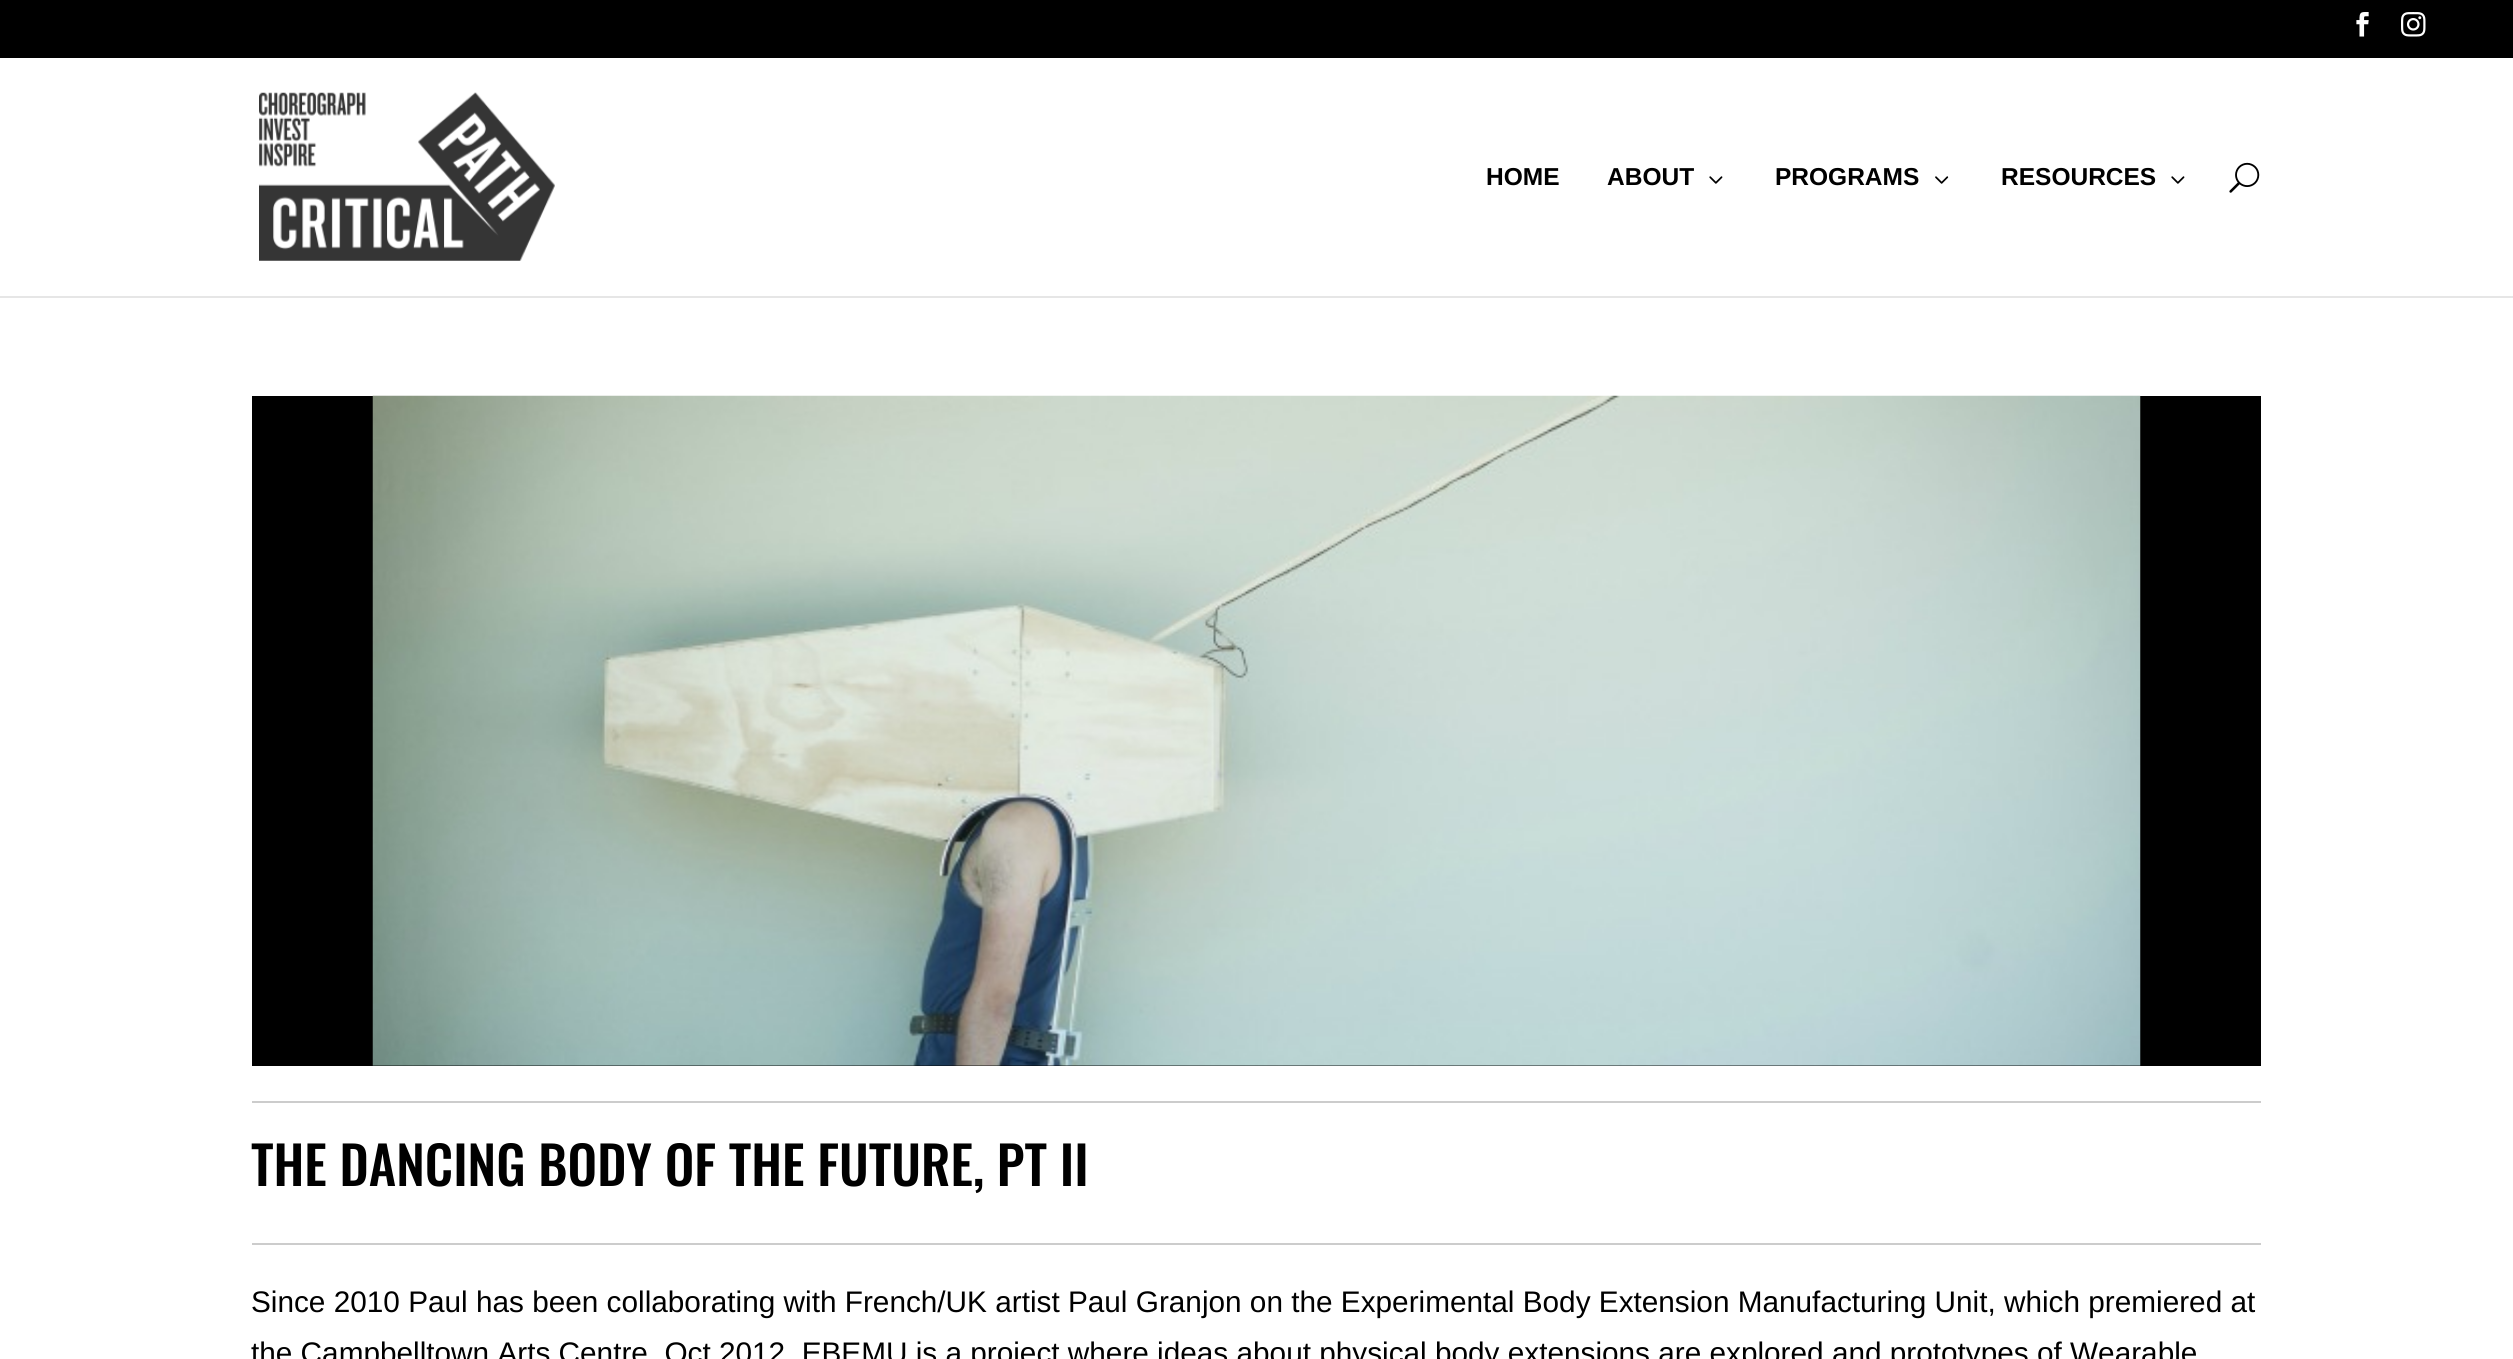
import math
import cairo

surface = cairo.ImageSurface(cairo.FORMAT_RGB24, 2513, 1359)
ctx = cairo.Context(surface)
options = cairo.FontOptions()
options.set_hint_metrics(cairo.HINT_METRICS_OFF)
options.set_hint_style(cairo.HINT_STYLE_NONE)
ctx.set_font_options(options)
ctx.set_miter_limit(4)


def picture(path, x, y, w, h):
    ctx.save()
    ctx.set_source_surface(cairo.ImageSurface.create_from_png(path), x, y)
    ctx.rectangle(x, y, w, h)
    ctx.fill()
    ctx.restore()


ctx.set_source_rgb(1, 1, 1)
ctx.paint()
ctx.set_source_rgb(0, 0, 0)
ctx.rectangle(0, 0, 2513, 58)
ctx.fill()
picture("img1.png", 2356, 12, 13, 25)
picture("img2.png", 2401, 12, 25, 25)
ctx.set_source_rgb(0.902, 0.902, 0.902)
ctx.rectangle(0, 296, 2513, 2)
ctx.fill()
picture("img3.png", 259, 92, 296, 169)
ctx.select_font_face("Liberation Sans", cairo.FONT_SLANT_NORMAL, cairo.FONT_WEIGHT_BOLD)
ctx.set_font_size(24.5)
ctx.set_source_rgb(0, 0, 0)
ctx.move_to(1486, 185)
ctx.show_text("HOME")
ctx.move_to(1607, 185)
ctx.show_text("ABOUT")
picture("img4.png", 1709, 176, 14, 8)
ctx.move_to(1775, 185)
ctx.show_text("PROGRAMS")
picture("img5.png", 1935, 176, 14, 8)
ctx.move_to(2001, 185)
ctx.show_text("RESOURCES")
picture("img4.png", 2171, 176, 14, 8)
picture("img6.png", 2229, 162, 31, 31)
ctx.rectangle(252, 396, 2009, 670)
ctx.fill()
picture("img7.png", 372, 395, 1769, 671)
ctx.set_source_rgb(0.8, 0.8, 0.8)
ctx.rectangle(252, 1101, 2009, 2)
ctx.fill()
ctx.rectangle(252, 1243, 2009, 2)
ctx.fill()
ctx.select_font_face("Oswald Medium")
ctx.set_font_size(52.5)
ctx.set_source_rgb(0, 0, 0)
ctx.move_to(251, 1186)
ctx.show_text("THE DANCING BODY OF THE FUTURE, PT II")
ctx.select_font_face("Liberation Sans")
ctx.set_font_size(29.75)
ctx.move_to(251, 1312)
ctx.show_text("Since 2010 Paul has been collaborating with French/UK artist Paul Granjon on the Experimental Body Extension Manufacturing Unit, which premiered at")
ctx.move_to(251, 1363)
ctx.show_text("the Campbelltown Arts Centre, Oct 2012. EBEMU is a project where ideas about physical body extensions are explored and prototypes of Wearable")
surface.write_to_png("page.png")
